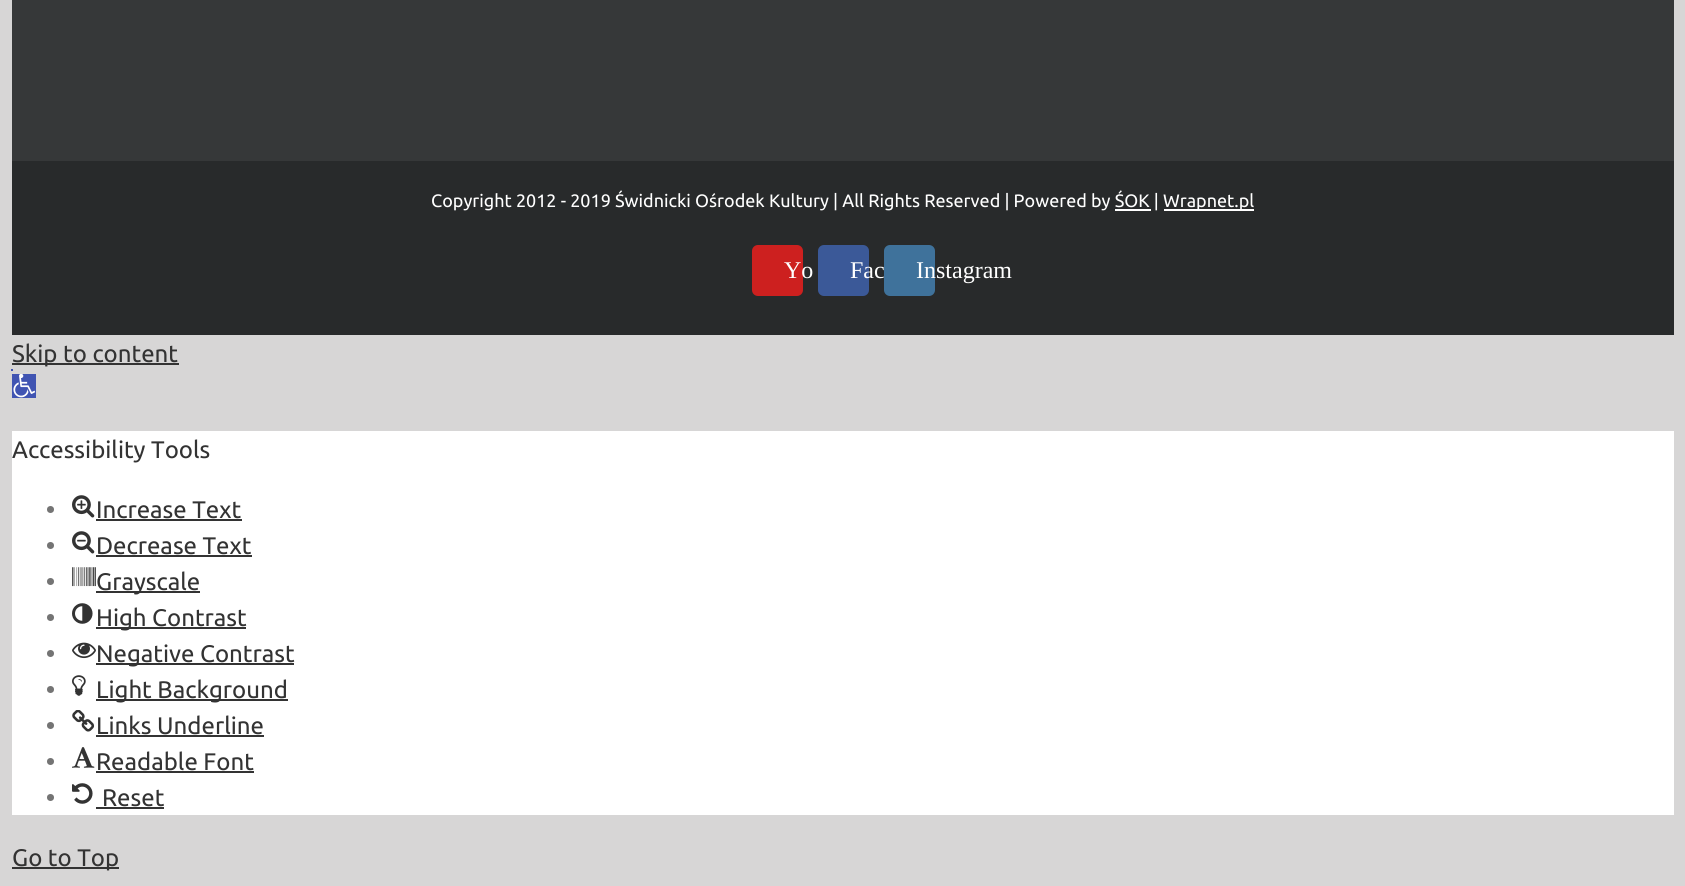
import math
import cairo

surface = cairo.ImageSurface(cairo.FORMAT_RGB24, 1685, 886)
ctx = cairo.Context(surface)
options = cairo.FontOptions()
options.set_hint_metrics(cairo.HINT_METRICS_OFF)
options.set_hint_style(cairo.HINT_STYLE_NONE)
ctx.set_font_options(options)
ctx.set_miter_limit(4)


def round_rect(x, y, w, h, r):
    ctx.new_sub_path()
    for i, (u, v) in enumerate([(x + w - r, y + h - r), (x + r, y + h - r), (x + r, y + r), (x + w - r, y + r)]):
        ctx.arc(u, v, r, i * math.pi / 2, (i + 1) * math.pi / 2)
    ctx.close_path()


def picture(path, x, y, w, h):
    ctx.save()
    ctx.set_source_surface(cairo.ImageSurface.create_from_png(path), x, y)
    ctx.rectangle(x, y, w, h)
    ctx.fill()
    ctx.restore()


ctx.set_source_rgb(0.843, 0.839, 0.839)
ctx.paint()
ctx.set_source_rgb(0.212, 0.22, 0.224)
ctx.rectangle(12, 0, 1662, 161)
ctx.fill()
ctx.set_source_rgb(0.157, 0.165, 0.169)
ctx.rectangle(12, 161, 1662, 174)
ctx.fill()
ctx.select_font_face("Ubuntu")
ctx.set_font_size(18)
ctx.set_source_rgb(1, 1, 1)
ctx.move_to(431, 207)
ctx.show_text("Copyright 2012 - 2019 Świdnicki Ośrodek Kultury | All Rights Reserved | Powered by ŚOK |")
ctx.rectangle(1164, 209, 90, 2)
ctx.fill()
ctx.move_to(1163, 207)
ctx.show_text("Wrapnet.pl")
ctx.rectangle(1115, 209, 36, 2)
ctx.fill()
ctx.set_source_rgb(0.804, 0.125, 0.122)
round_rect(753, 246, 49, 49, 5)
ctx.fill_preserve()
ctx.stroke()
ctx.select_font_face("Liberation Serif")
ctx.set_font_size(24)
ctx.set_source_rgb(1, 1, 1)
ctx.move_to(784, 278)
ctx.show_text("Yo")
ctx.set_source_rgb(0.231, 0.349, 0.596)
round_rect(819, 246, 49, 49, 5)
ctx.fill_preserve()
ctx.stroke()
ctx.set_source_rgb(1, 1, 1)
ctx.move_to(850, 278)
ctx.show_text("Fac")
ctx.set_source_rgb(0.247, 0.447, 0.608)
round_rect(885, 246, 49, 49, 5)
ctx.fill_preserve()
ctx.stroke()
ctx.set_source_rgb(1, 1, 1)
ctx.move_to(916, 278)
ctx.show_text("Instagram")
ctx.set_source_rgb(0.2, 0.2, 0.2)
ctx.rectangle(12, 363, 167, 2)
ctx.fill()
ctx.select_font_face("Ubuntu")
ctx.move_to(12, 362)
ctx.show_text("Skip to content")
ctx.set_source_rgb(0.251, 0.329, 0.698)
ctx.rectangle(11, 369, 2, 2)
ctx.fill()
ctx.rectangle(12, 374, 24, 24)
ctx.fill()
picture("img1.png", 13, 374, 23, 24)
ctx.set_source_rgb(1, 1, 1)
ctx.rectangle(12, 431, 1662, 384)
ctx.fill()
ctx.set_source_rgb(0.2, 0.2, 0.2)
ctx.move_to(12, 458)
ctx.show_text("Accessibility Tools")
ctx.set_source_rgb(0.455, 0.455, 0.455)
ctx.new_path()
ctx.arc(50.5, 509.5, 3.5, 0, 2 * math.pi)
ctx.fill()
picture("img2.png", 72, 495, 23, 23)
ctx.set_source_rgb(0.2, 0.2, 0.2)
ctx.move_to(96, 518)
ctx.show_text("Increase Text")
ctx.rectangle(96, 519, 146, 2)
ctx.fill()
ctx.set_source_rgb(0.455, 0.455, 0.455)
ctx.arc(50.5, 545.5, 3.5, 0, 2 * math.pi)
ctx.fill()
picture("img3.png", 72, 531, 23, 23)
ctx.set_source_rgb(0.2, 0.2, 0.2)
ctx.move_to(96, 554)
ctx.show_text("Decrease Text")
ctx.rectangle(96, 555, 156, 2)
ctx.fill()
ctx.set_source_rgb(0.455, 0.455, 0.455)
ctx.arc(50.5, 581.5, 3.5, 0, 2 * math.pi)
ctx.fill()
picture("img4.png", 72, 567, 24, 20)
ctx.set_source_rgb(0.2, 0.2, 0.2)
ctx.rectangle(96, 591, 104, 2)
ctx.fill()
ctx.move_to(96, 590)
ctx.show_text("Grayscale")
ctx.set_source_rgb(0.455, 0.455, 0.455)
ctx.new_path()
ctx.arc(50.5, 617.5, 3.5, 0, 2 * math.pi)
ctx.fill()
picture("img5.png", 72, 603, 21, 21)
ctx.set_source_rgb(0.2, 0.2, 0.2)
ctx.rectangle(96, 627, 150, 2)
ctx.fill()
ctx.move_to(96, 626)
ctx.show_text("High Contrast")
ctx.set_source_rgb(0.455, 0.455, 0.455)
ctx.new_path()
ctx.arc(50.5, 653.5, 3.5, 0, 2 * math.pi)
ctx.fill()
picture("img6.png", 72, 642, 24, 17)
ctx.set_source_rgb(0.2, 0.2, 0.2)
ctx.rectangle(96, 663, 198, 2)
ctx.fill()
ctx.move_to(96, 662)
ctx.show_text("Negative Contrast")
ctx.set_source_rgb(0.455, 0.455, 0.455)
ctx.new_path()
ctx.arc(50.5, 689.5, 3.5, 0, 2 * math.pi)
ctx.fill()
picture("img7.png", 72, 675, 14, 21)
ctx.set_source_rgb(0.2, 0.2, 0.2)
ctx.rectangle(96, 699, 192, 2)
ctx.fill()
ctx.move_to(96, 698)
ctx.show_text("Light Background")
ctx.set_source_rgb(0.455, 0.455, 0.455)
ctx.new_path()
ctx.arc(50.5, 725.5, 3.5, 0, 2 * math.pi)
ctx.fill()
picture("img8.png", 72, 710, 23, 22)
ctx.set_source_rgb(0.2, 0.2, 0.2)
ctx.move_to(96, 734)
ctx.show_text("Links Underline")
ctx.rectangle(96, 735, 168, 2)
ctx.fill()
ctx.set_source_rgb(0.455, 0.455, 0.455)
ctx.arc(50.5, 761.5, 3.5, 0, 2 * math.pi)
ctx.fill()
picture("img9.png", 72, 747, 23, 21)
ctx.set_source_rgb(0.2, 0.2, 0.2)
ctx.move_to(96, 770)
ctx.show_text("Readable Font")
ctx.rectangle(96, 771, 158, 2)
ctx.fill()
ctx.set_source_rgb(0.455, 0.455, 0.455)
ctx.arc(50.5, 797.5, 3.5, 0, 2 * math.pi)
ctx.fill()
picture("img10.png", 72, 783, 21, 21)
ctx.set_source_rgb(0.2, 0.2, 0.2)
ctx.move_to(102, 806)
ctx.show_text("Reset")
ctx.rectangle(96, 807, 68, 2)
ctx.fill()
ctx.rectangle(12, 867, 107, 2)
ctx.fill()
ctx.move_to(12, 866)
ctx.show_text("Go to Top")
surface.write_to_png("page.png")
